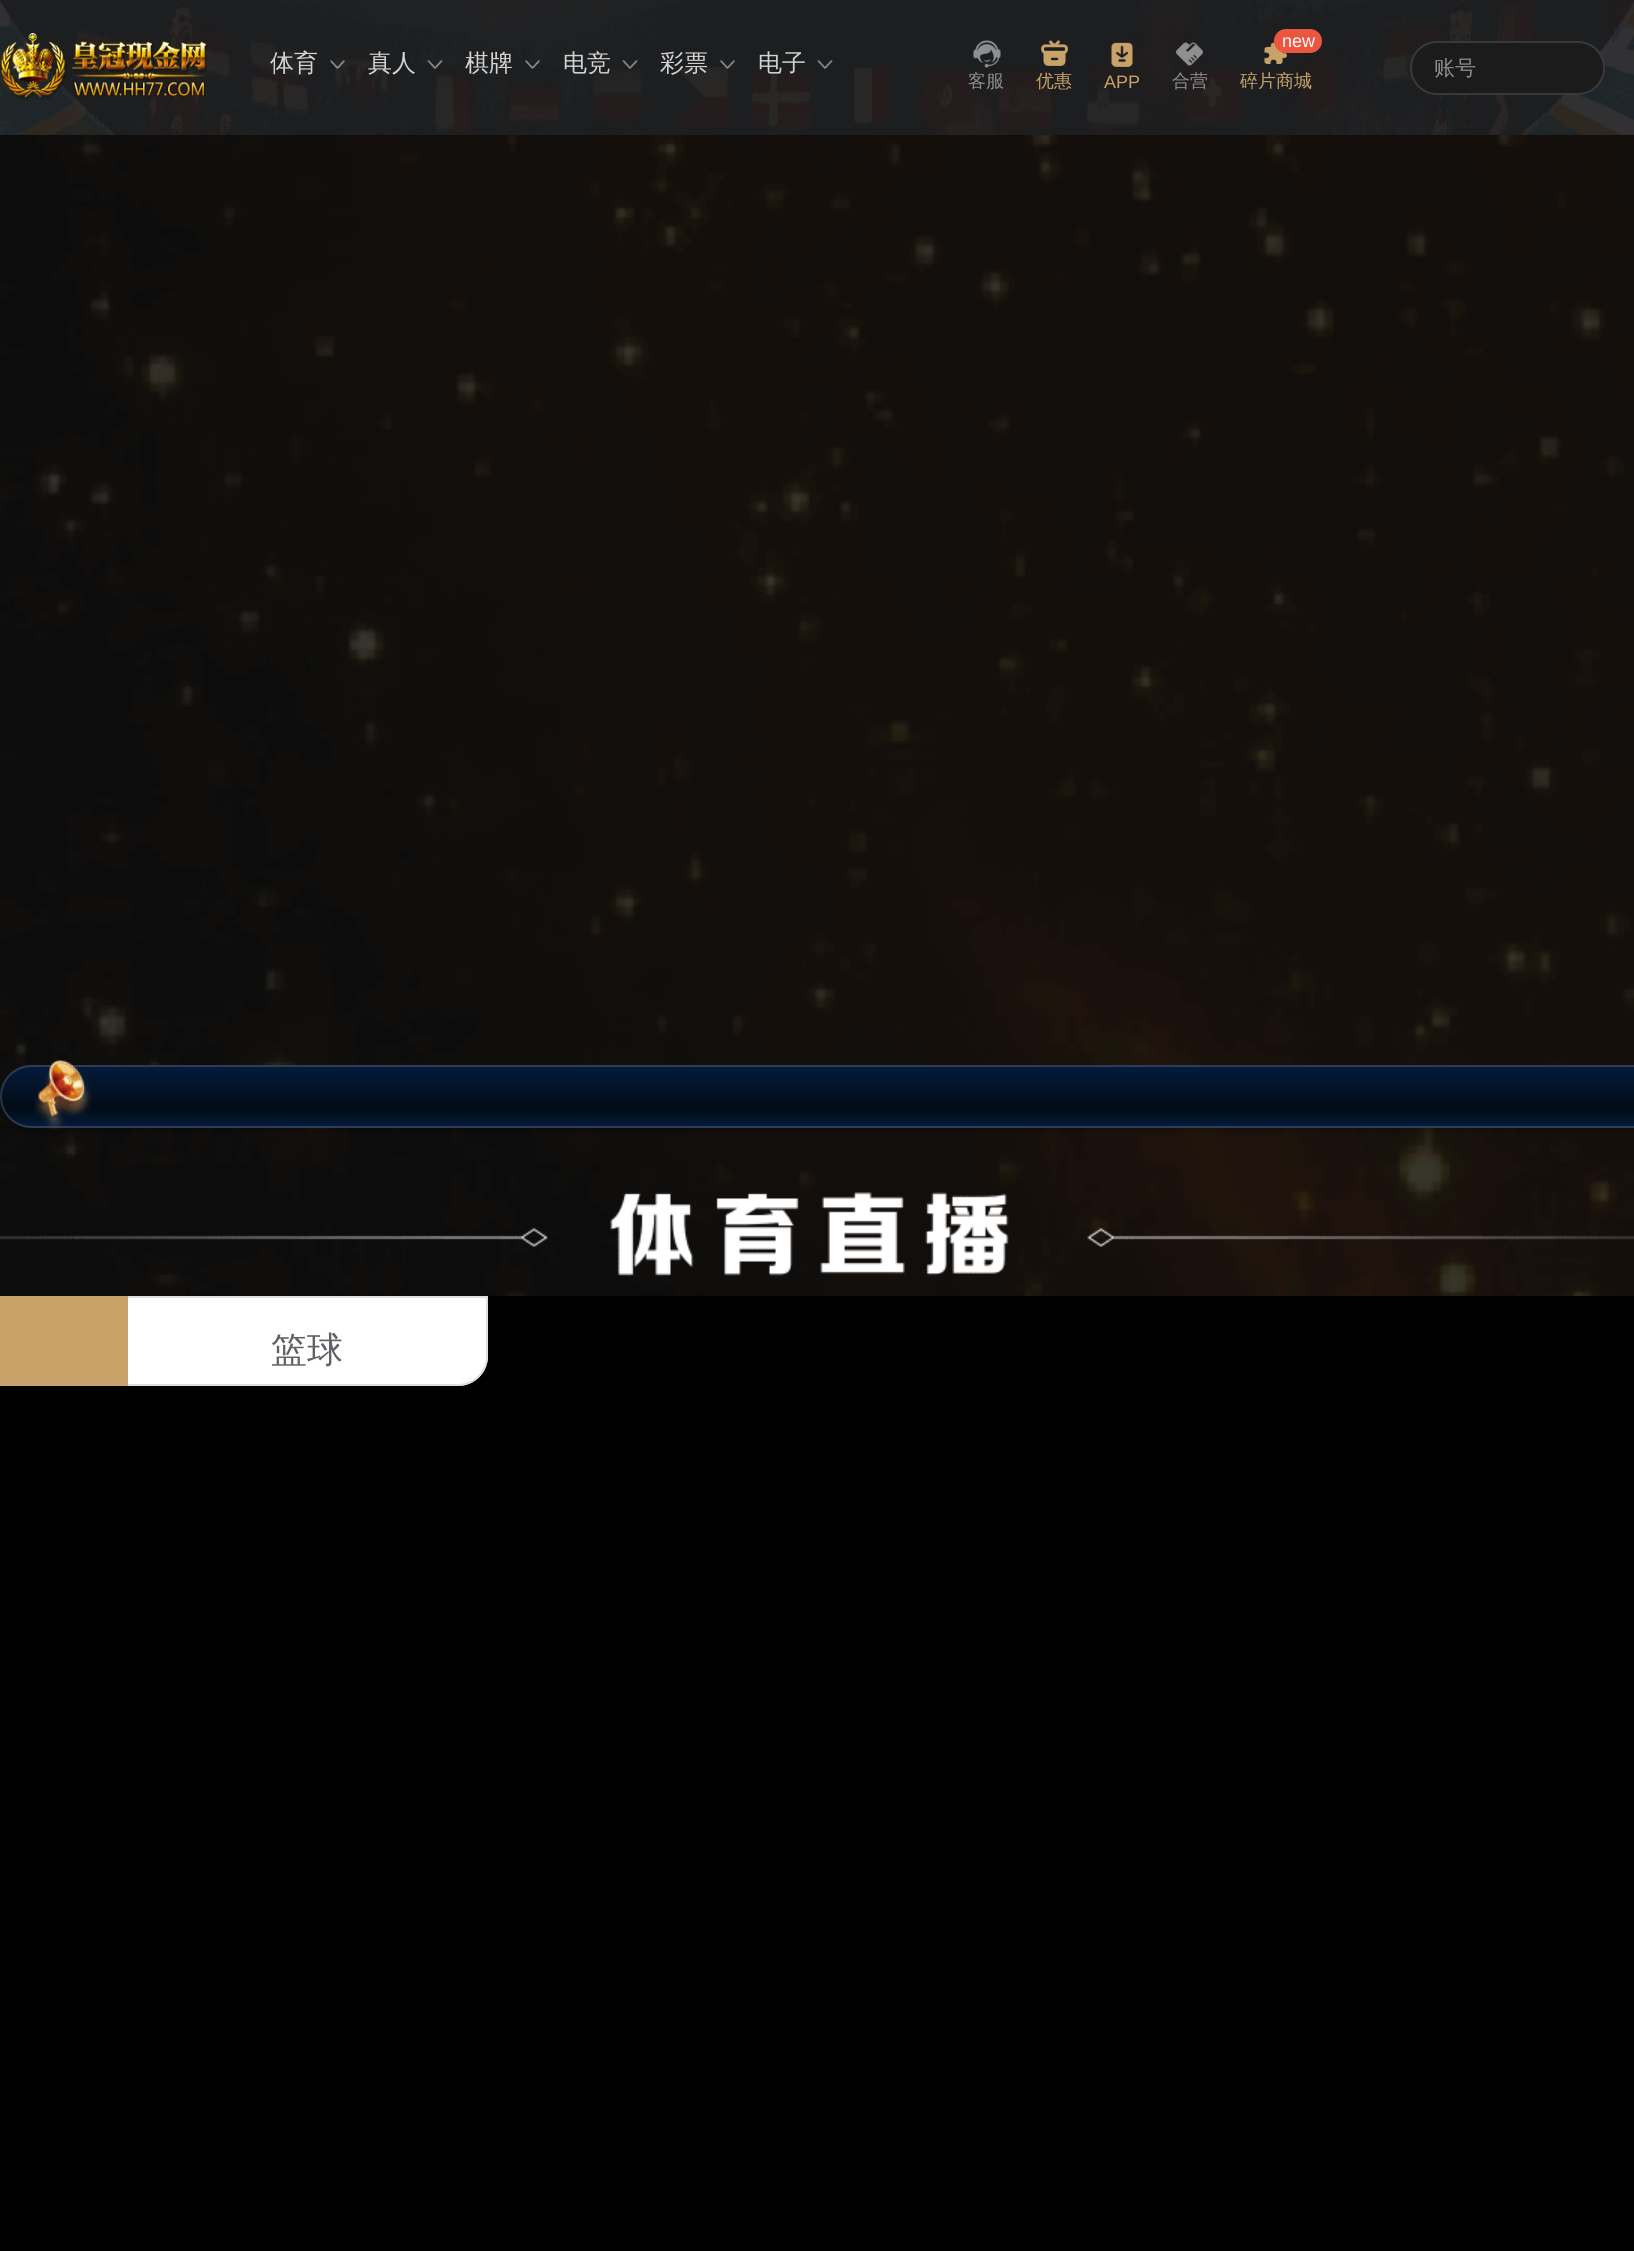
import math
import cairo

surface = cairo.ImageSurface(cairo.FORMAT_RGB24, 1634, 2251)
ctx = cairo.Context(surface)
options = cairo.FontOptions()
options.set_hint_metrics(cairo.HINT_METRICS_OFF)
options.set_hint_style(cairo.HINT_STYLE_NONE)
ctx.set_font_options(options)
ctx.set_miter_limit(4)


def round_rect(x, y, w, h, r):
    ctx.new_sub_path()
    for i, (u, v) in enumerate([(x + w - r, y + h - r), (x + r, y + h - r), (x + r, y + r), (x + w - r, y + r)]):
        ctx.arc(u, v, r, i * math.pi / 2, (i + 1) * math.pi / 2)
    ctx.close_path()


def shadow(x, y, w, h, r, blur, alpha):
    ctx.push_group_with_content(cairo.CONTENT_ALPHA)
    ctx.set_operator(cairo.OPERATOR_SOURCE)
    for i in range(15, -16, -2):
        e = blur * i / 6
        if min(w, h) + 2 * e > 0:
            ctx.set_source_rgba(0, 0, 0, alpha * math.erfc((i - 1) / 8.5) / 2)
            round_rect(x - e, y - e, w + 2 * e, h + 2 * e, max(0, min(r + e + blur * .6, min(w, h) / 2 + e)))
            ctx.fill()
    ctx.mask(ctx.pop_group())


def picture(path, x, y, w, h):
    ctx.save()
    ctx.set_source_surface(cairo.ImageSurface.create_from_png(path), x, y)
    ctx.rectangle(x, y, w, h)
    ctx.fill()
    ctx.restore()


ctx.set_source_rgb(1, 1, 1)
ctx.paint()
ctx.set_source_rgb(0.106, 0.106, 0.106)
ctx.rectangle(0, 0, 1634, 135)
ctx.fill()
picture("img1.png", 0, 0, 1634, 135)
picture("img2.png", 1, 33, 206, 67)
ctx.select_font_face("WenQuanYi Zen Hei Medium")
ctx.set_font_size(24)
ctx.set_source_rgb(0.827, 0.827, 0.827)
ctx.move_to(270, 71)
ctx.show_text("体育")
picture("img3.png", 330, 60, 15, 9)
ctx.move_to(368, 71)
ctx.show_text("真人")
picture("img4.png", 427, 60, 16, 9)
ctx.move_to(465, 71)
ctx.show_text("棋牌")
picture("img5.png", 525, 60, 15, 9)
ctx.move_to(563, 71)
ctx.show_text("电竞")
picture("img6.png", 622, 60, 16, 9)
ctx.move_to(660, 71)
ctx.show_text("彩票")
picture("img7.png", 720, 60, 15, 9)
ctx.move_to(758, 71)
ctx.show_text("电子")
picture("img8.png", 817, 60, 16, 9)
picture("img9.png", 973, 40, 28, 28)
ctx.set_font_size(18)
ctx.set_source_rgb(0.561, 0.557, 0.561)
ctx.move_to(968, 87)
ctx.show_text("客服")
picture("img10.png", 1041, 40, 27, 26)
ctx.set_source_rgb(0.788, 0.635, 0.412)
ctx.move_to(1036, 87)
ctx.show_text("优惠")
picture("img11.png", 1111, 42, 22, 25)
ctx.select_font_face("Liberation Sans")
ctx.move_to(1104, 88)
ctx.show_text("APP")
picture("img12.png", 1176, 42, 27, 24)
ctx.select_font_face("WenQuanYi Zen Hei Medium")
ctx.set_source_rgb(0.561, 0.557, 0.561)
ctx.move_to(1172, 87)
ctx.show_text("合营")
picture("img13.png", 1264, 42, 23, 22)
ctx.set_source_rgb(0.922, 0.337, 0.255)
round_rect(1274, 29, 48, 24, 12)
ctx.fill()
ctx.select_font_face("Liberation Sans")
ctx.set_source_rgb(1, 1, 1)
ctx.move_to(1282, 47)
ctx.show_text("new")
ctx.select_font_face("WenQuanYi Zen Hei Medium")
ctx.set_source_rgb(0.788, 0.635, 0.412)
ctx.move_to(1240, 87)
ctx.show_text("碎片商城")
ctx.set_source_rgb(0.106, 0.106, 0.106)
round_rect(1410, 41, 195, 54, 27)
ctx.fill()
round_rect(1411, 42, 193, 52, 26)
ctx.set_source_rgba(0.898, 0.898, 0.898, 0.15)
ctx.stroke()
ctx.set_font_size(21)
ctx.set_source_rgb(0.561, 0.557, 0.561)
ctx.move_to(1434, 75)
ctx.show_text("账号")
picture("img14.png", 0, 135, 1634, 1161)
ctx.set_source_rgb(0, 0, 0)
shadow(0, 1068, 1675, 63, 31.5, 3, 0.2)
ctx.save()
round_rect(0, 1065, 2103, 63, 31.5)
ctx.clip()
gradient = cairo.LinearGradient(1052, 1006, 1052, 1067)
gradient.add_color_stop_rgba(0, 0.016, 0.106, 0.231, 1)
gradient.add_color_stop_rgba(0.7, 0.008, 0.043, 0.086, 1)
gradient.add_color_stop_rgba(1, 0.016, 0.106, 0.231, 1)
ctx.set_source(gradient)
ctx.rectangle(20, 1065, 1614, 2)
ctx.fill()
gradient = cairo.LinearGradient(1052, 1066, 1052, 1127)
gradient.add_color_stop_rgba(0, 0.016, 0.106, 0.231, 1)
gradient.add_color_stop_rgba(0.7, 0.008, 0.043, 0.086, 1)
gradient.add_color_stop_rgba(1, 0.016, 0.106, 0.231, 1)
ctx.set_source(gradient)
ctx.rectangle(0, 1067, 1634, 60)
ctx.fill()
gradient = cairo.LinearGradient(1052, 1126, 1052, 1187)
gradient.add_color_stop_rgba(0, 0.016, 0.106, 0.231, 1)
gradient.add_color_stop_rgba(0.7, 0.008, 0.043, 0.086, 1)
gradient.add_color_stop_rgba(1, 0.016, 0.106, 0.231, 1)
ctx.set_source(gradient)
ctx.rectangle(24, 1127, 1610, 1)
ctx.fill()
ctx.restore()
round_rect(1, 1066, 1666, 61, 30.5)
ctx.set_source_rgba(0.796, 0.796, 0.796, 0.2)
ctx.stroke()
picture("img15.png", 34, 1059, 58, 71)
picture("img16.png", 0, 1192, 1634, 84)
ctx.set_source_rgb(0, 0, 0)
ctx.rectangle(0, 1296, 1634, 955)
ctx.fill()
ctx.set_source_rgb(0.788, 0.635, 0.412)
ctx.rectangle(0, 1296, 128, 90)
ctx.fill()
ctx.set_source_rgb(1, 1, 1)
ctx.new_path()
ctx.move_to(128, 1296)
ctx.line_to(488, 1296)
ctx.line_to(488, 1356)
ctx.curve_to(488, 1372.5, 474.5, 1386, 458, 1386)
ctx.line_to(128, 1386)
ctx.close_path()
ctx.fill()
ctx.set_source_rgb(0.863, 0.875, 0.902)
ctx.set_fill_rule(cairo.FILL_RULE_EVEN_ODD)
ctx.new_path()
ctx.move_to(128, 1296)
ctx.line_to(488, 1296)
ctx.line_to(488, 1356)
ctx.curve_to(488, 1373, 474, 1386, 458, 1386)
ctx.line_to(128, 1386)
ctx.close_path()
ctx.move_to(128, 1298)
ctx.line_to(486, 1298)
ctx.line_to(486, 1356)
ctx.curve_to(486, 1372, 473, 1384, 458, 1384)
ctx.line_to(128, 1384)
ctx.close_path()
ctx.fill()
ctx.set_font_size(36)
ctx.set_source_rgb(0.376, 0.384, 0.4)
ctx.move_to(271, 1362)
ctx.show_text("篮球")
surface.write_to_png("page.png")
